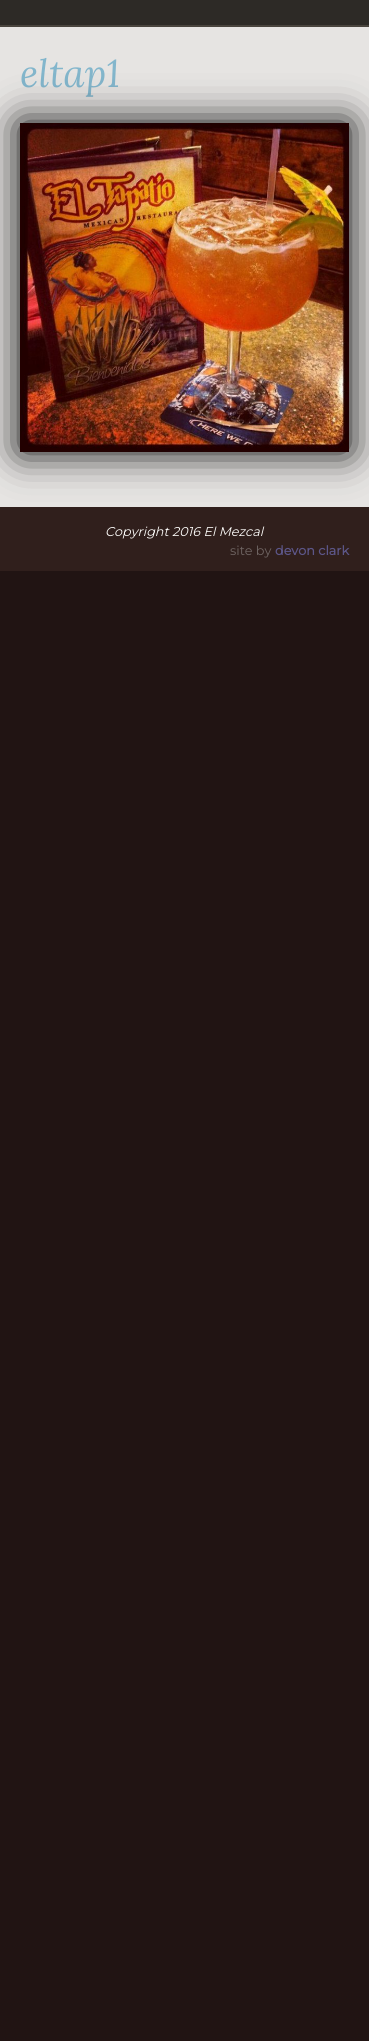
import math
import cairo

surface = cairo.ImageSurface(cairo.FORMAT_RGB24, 369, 2041)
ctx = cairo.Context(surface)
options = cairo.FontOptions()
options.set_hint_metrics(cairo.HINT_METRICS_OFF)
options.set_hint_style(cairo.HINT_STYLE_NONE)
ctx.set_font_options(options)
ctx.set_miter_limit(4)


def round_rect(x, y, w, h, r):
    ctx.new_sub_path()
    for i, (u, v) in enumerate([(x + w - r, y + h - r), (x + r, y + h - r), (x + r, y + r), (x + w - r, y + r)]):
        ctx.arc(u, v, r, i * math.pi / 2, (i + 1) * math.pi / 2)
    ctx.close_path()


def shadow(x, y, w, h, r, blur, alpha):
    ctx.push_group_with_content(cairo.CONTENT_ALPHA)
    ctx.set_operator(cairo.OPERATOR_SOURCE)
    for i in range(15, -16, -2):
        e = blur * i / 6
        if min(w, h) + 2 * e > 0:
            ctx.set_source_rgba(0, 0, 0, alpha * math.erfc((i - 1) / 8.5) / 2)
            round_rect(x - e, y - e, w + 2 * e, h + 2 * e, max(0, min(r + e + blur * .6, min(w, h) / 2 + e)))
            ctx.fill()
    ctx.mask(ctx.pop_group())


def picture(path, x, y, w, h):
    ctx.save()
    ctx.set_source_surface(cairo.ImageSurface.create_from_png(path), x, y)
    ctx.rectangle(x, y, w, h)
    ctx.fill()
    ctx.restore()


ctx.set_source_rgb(0.129, 0.082, 0.075)
ctx.paint()
ctx.set_source_rgb(0.902, 0.894, 0.886)
ctx.rectangle(0, 27, 369, 480)
ctx.fill()
ctx.set_source_rgb(0.176, 0.165, 0.149)
ctx.rectangle(0, 0, 369, 25)
ctx.fill()
ctx.set_source_rgb(0.286, 0.267, 0.239)
ctx.rectangle(0, 25, 369, 2)
ctx.fill()
ctx.select_font_face("Lora", cairo.FONT_SLANT_ITALIC)
ctx.set_font_size(38.5)
ctx.set_source_rgb(0.514, 0.714, 0.8)
ctx.move_to(20, 87)
ctx.show_text("eltap1")
ctx.set_source_rgb(0, 0, 0)
shadow(20, 123, 329, 329, 0, 20, 1)
picture("img1.png", 20, 123, 329, 329)
ctx.set_source_rgb(0.188, 0.122, 0.11)
ctx.rectangle(0, 507, 369, 64)
ctx.fill()
ctx.select_font_face("Montserrat Thin", cairo.FONT_SLANT_ITALIC)
ctx.set_font_size(12.75)
ctx.set_source_rgb(0.988, 0.984, 0.976)
ctx.move_to(105, 536)
ctx.show_text("Copyright 2016 El Mezcal")
ctx.select_font_face("Montserrat Thin")
ctx.set_source_rgb(0.439, 0.4, 0.392)
ctx.move_to(230, 555)
ctx.show_text("site by")
ctx.select_font_face("Montserrat", cairo.FONT_SLANT_NORMAL, cairo.FONT_WEIGHT_BOLD)
ctx.set_source_rgb(0.361, 0.337, 0.537)
ctx.move_to(275, 555)
ctx.show_text("devon clark")
surface.write_to_png("page.png")
